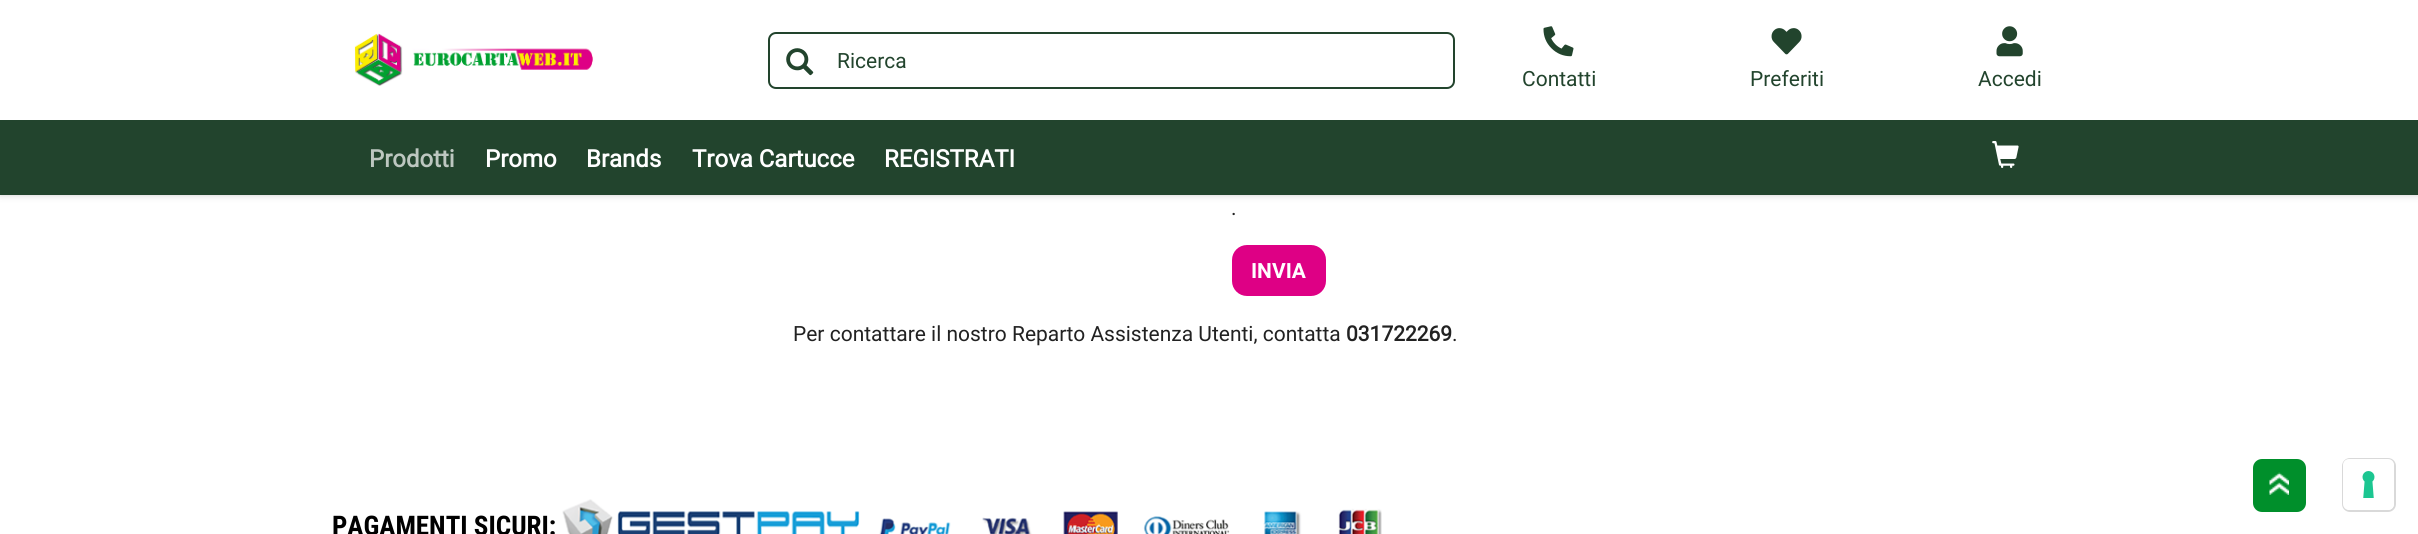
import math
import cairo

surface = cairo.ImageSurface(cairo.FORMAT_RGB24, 2418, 534)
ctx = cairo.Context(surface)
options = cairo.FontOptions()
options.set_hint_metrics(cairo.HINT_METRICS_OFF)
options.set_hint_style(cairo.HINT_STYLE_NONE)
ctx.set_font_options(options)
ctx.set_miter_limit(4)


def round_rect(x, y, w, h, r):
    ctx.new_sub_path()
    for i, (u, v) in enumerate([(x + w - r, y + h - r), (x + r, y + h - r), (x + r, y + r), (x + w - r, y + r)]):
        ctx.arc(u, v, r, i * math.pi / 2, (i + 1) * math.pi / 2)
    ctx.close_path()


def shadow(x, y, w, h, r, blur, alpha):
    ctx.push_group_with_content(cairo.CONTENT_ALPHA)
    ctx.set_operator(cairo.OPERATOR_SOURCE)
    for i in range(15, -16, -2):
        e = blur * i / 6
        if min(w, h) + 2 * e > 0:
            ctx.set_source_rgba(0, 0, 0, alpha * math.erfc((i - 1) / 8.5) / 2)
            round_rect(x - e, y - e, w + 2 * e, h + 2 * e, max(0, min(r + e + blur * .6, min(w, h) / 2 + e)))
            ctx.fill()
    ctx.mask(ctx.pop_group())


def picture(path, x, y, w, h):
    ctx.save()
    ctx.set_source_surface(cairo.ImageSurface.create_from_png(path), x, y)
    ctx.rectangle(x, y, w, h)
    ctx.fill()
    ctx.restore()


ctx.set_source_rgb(1, 1, 1)
ctx.paint()
ctx.set_source_rgb(0.6, 0.6, 0.6)
shadow(0, -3, 2418, 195, 0, 4.5, 1)
ctx.set_source_rgb(1, 1, 1)
ctx.rectangle(0, 0, 2418, 120)
ctx.fill()
picture("img1.png", 354, 33, 239, 53)
round_rect(769, 33, 685, 55, 7)
ctx.set_source_rgb(0.133, 0.267, 0.176)
ctx.stroke()
picture("img2.png", 786, 48, 28, 28)
ctx.select_font_face("Roboto")
ctx.set_font_size(21)
ctx.move_to(837, 68)
ctx.show_text("Ricerca")
picture("img3.png", 1543, 26, 31, 31)
ctx.move_to(1522, 86)
ctx.show_text("Contatti")
picture("img4.png", 1771, 28, 31, 27)
ctx.move_to(1750, 86)
ctx.show_text("Preferiti")
picture("img5.png", 1996, 26, 27, 31)
ctx.move_to(1978, 86)
ctx.show_text("Accedi")
ctx.rectangle(0, 120, 2418, 75)
ctx.fill()
ctx.select_font_face("Roboto", cairo.FONT_SLANT_NORMAL, cairo.FONT_WEIGHT_BOLD)
ctx.set_font_size(24)
ctx.set_source_rgb(0.741, 0.78, 0.753)
ctx.move_to(369, 167)
ctx.show_text("Prodotti")
ctx.set_source_rgb(1, 1, 1)
ctx.move_to(485, 167)
ctx.show_text("Promo")
ctx.move_to(586, 167)
ctx.show_text("Brands")
ctx.move_to(692, 167)
ctx.show_text("Trova Cartucce")
ctx.move_to(884, 167)
ctx.show_text("REGISTRATI")
picture("img6.png", 1992, 141, 27, 27)
ctx.select_font_face("Roboto")
ctx.set_font_size(21)
ctx.set_source_rgb(0.133, 0.133, 0.133)
ctx.move_to(1231, 215)
ctx.show_text(".")
ctx.set_source_rgb(0.871, 0, 0.522)
round_rect(1233, 246, 92, 49, 14)
ctx.fill_preserve()
ctx.stroke()
ctx.select_font_face("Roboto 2", cairo.FONT_SLANT_NORMAL, cairo.FONT_WEIGHT_BOLD)
ctx.set_source_rgb(1, 1, 1)
ctx.move_to(1251, 278)
ctx.show_text("INVIA")
ctx.select_font_face("Roboto")
ctx.set_source_rgb(0.133, 0.133, 0.133)
ctx.move_to(793, 341)
ctx.show_text("Per contattare il nostro Reparto Assistenza Utenti, contatta")
ctx.select_font_face("Roboto", cairo.FONT_SLANT_NORMAL, cairo.FONT_WEIGHT_BOLD)
ctx.move_to(1346, 341)
ctx.show_text("031722269")
ctx.select_font_face("Roboto")
ctx.move_to(1452, 341)
ctx.show_text(".")
round_rect(2343, 459, 52, 52, 7)
ctx.set_source_rgb(0.851, 0.851, 0.851)
ctx.stroke()
ctx.set_source_rgb(1, 1, 1)
round_rect(2343, 459, 51, 51, 6)
ctx.fill()
picture("img7.png", 2362, 471, 13, 27)
ctx.set_source_rgb(0, 0.561, 0.169)
round_rect(2253, 459, 53, 53, 9)
ctx.fill()
picture("img8.png", 2269, 472, 20, 23)
ctx.select_font_face("Roboto Condensed", cairo.FONT_SLANT_NORMAL, cairo.FONT_WEIGHT_BOLD)
ctx.set_font_size(27)
ctx.set_source_rgb(0, 0, 0)
ctx.move_to(332, 535)
ctx.show_text("PAGAMENTI SICURI:")
picture("img9.png", 562, 499, 820, 35)
surface.write_to_png("page.png")
